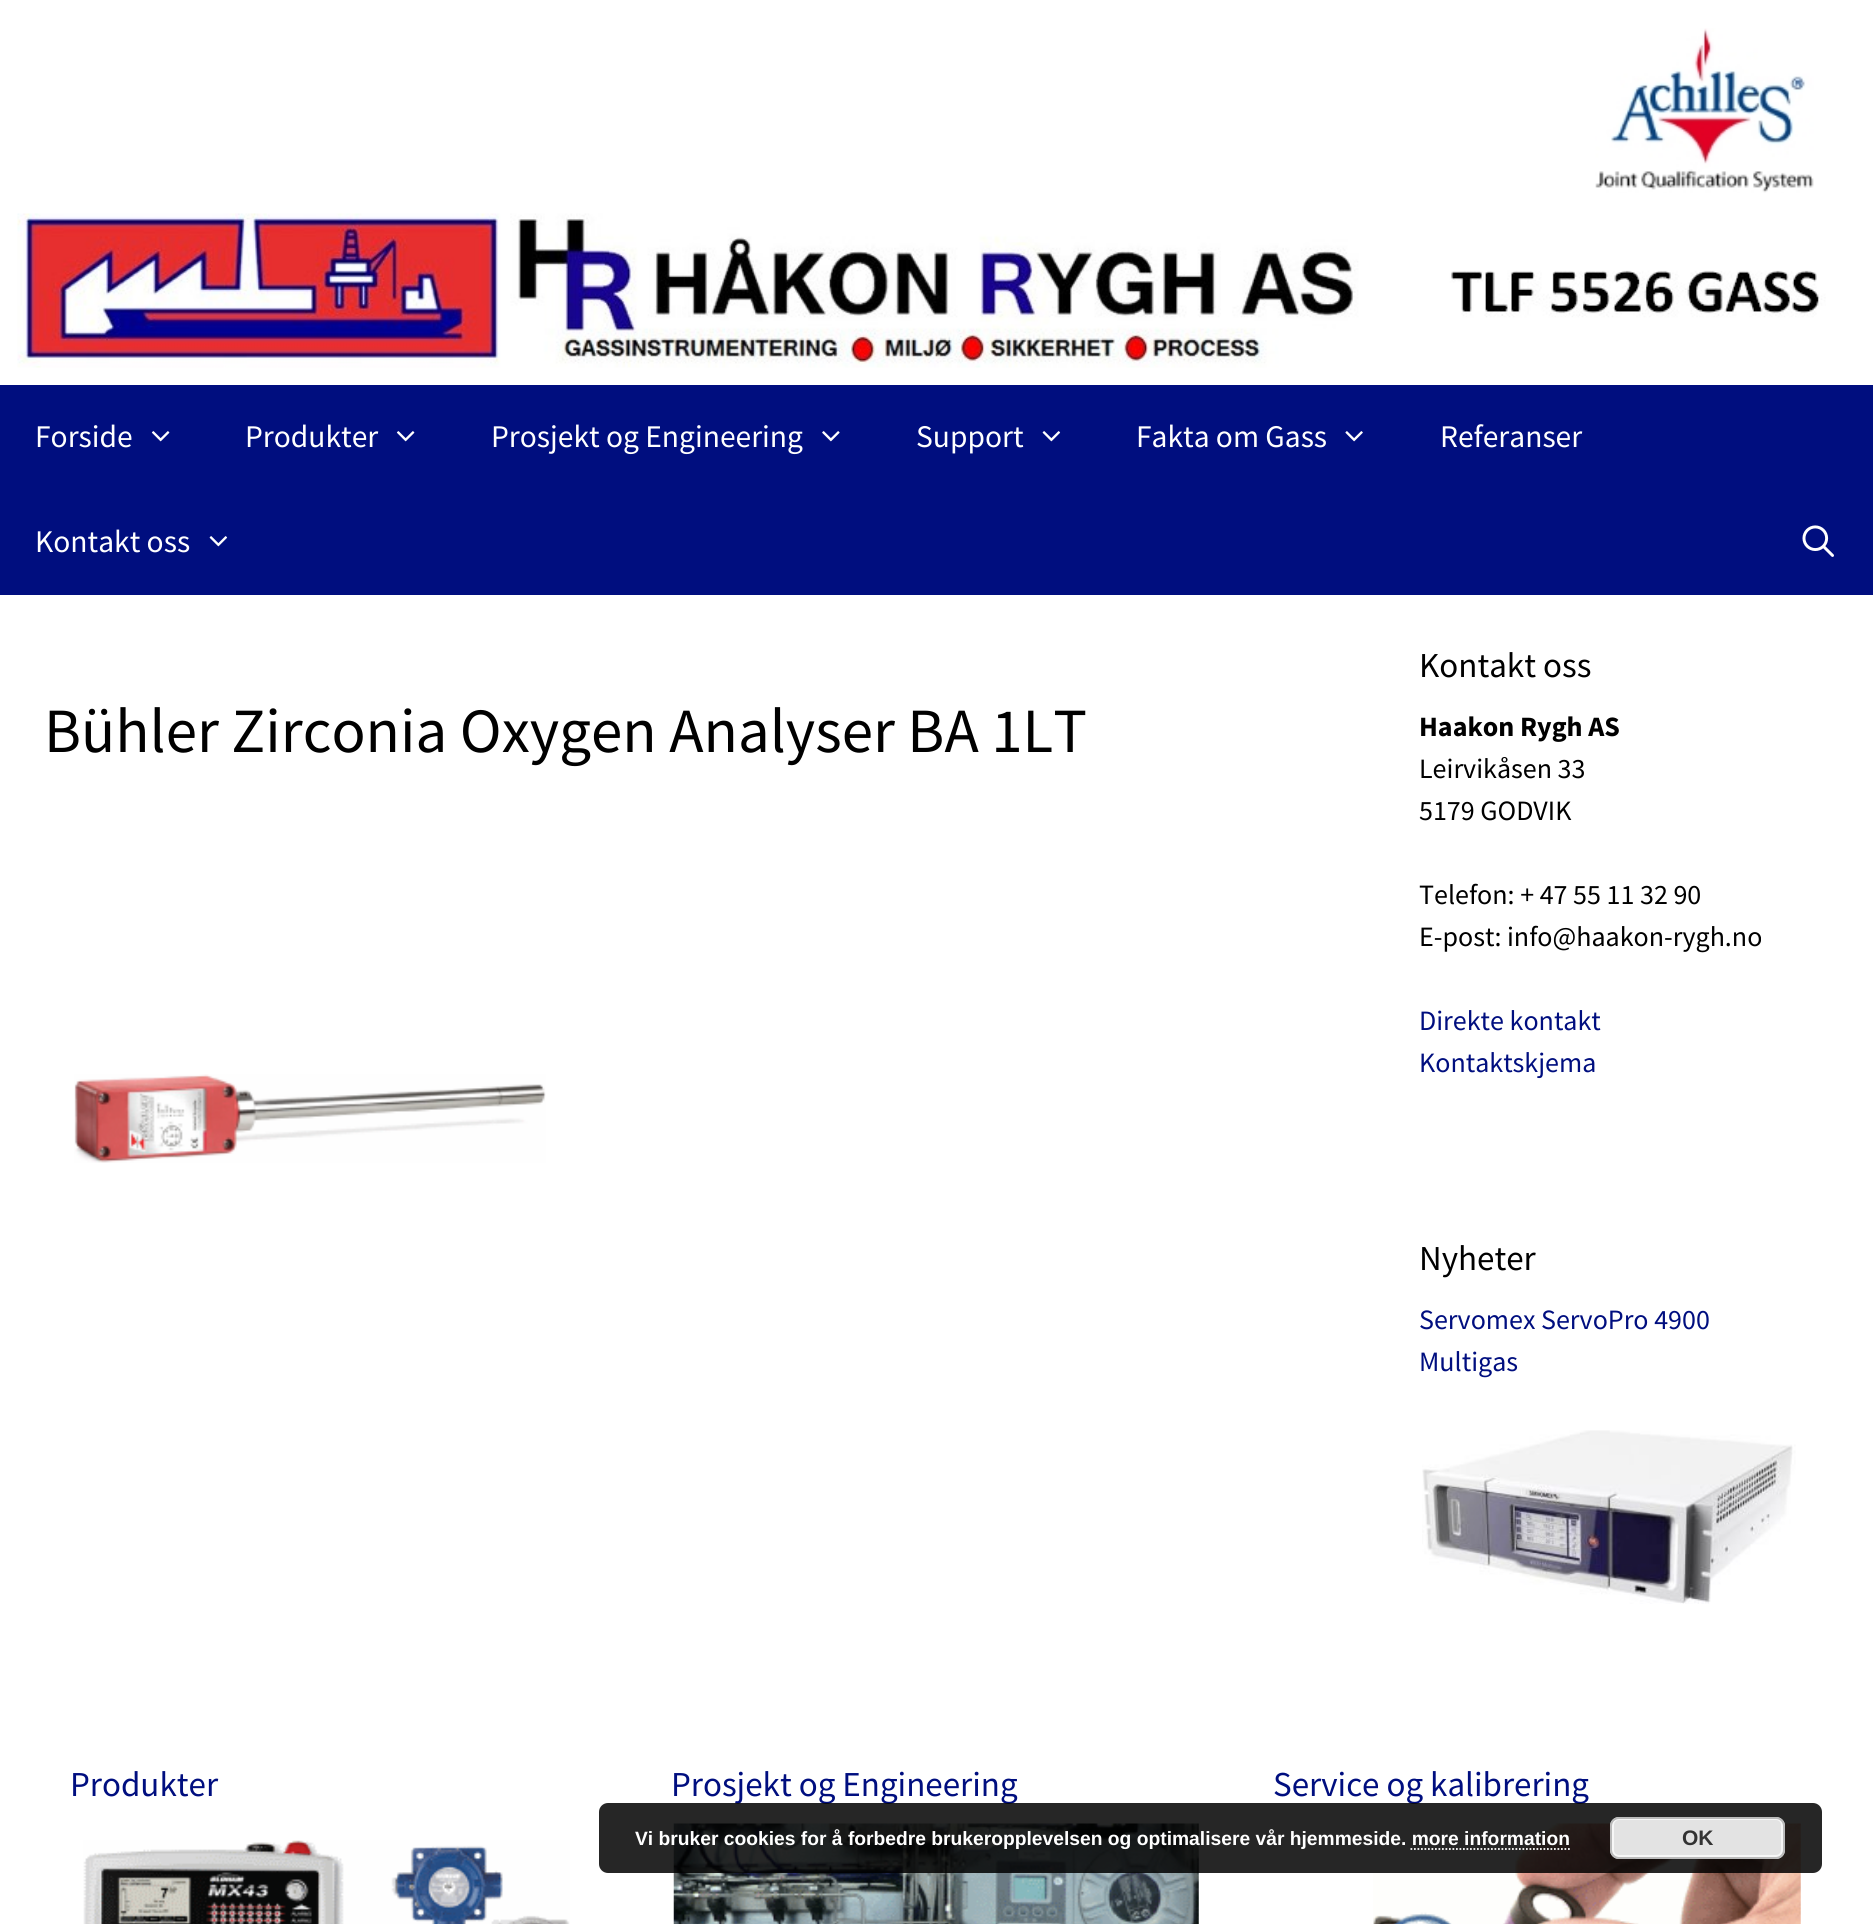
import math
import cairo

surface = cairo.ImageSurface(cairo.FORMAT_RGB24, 1873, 1924)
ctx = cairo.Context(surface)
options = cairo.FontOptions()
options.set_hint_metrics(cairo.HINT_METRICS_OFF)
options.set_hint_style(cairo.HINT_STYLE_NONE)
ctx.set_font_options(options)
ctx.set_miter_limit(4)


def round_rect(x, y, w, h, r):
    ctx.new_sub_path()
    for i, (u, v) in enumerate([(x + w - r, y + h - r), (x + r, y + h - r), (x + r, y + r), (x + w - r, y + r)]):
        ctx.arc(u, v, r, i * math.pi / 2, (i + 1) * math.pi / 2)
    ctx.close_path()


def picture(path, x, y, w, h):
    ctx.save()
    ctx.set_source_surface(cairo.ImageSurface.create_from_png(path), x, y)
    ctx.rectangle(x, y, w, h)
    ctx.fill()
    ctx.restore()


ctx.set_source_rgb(0, 0.055, 0.498)
ctx.paint()
ctx.set_source_rgb(1, 1, 1)
ctx.rectangle(0, 0, 1873, 385)
ctx.fill()
picture("img1.png", 1595, 28, 219, 165)
picture("img2.png", 17, 213, 1809, 155)
ctx.select_font_face("Source Sans Pro")
ctx.set_font_size(31.5)
ctx.move_to(35, 447)
ctx.show_text("Forside")
picture("img3.png", 151, 431, 19, 11)
ctx.move_to(245, 447)
ctx.show_text("Produkter")
picture("img3.png", 396, 431, 19, 11)
ctx.move_to(491, 447)
ctx.show_text("Prosjekt og Engineering")
picture("img4.png", 822, 431, 18, 11)
ctx.move_to(916, 447)
ctx.show_text("Support")
picture("img5.png", 1042, 431, 19, 11)
ctx.move_to(1136, 447)
ctx.show_text("Fakta om Gass")
picture("img6.png", 1345, 431, 18, 11)
ctx.move_to(1440, 447)
ctx.show_text("Referanser")
ctx.move_to(35, 552)
ctx.show_text("Kontakt oss")
picture("img5.png", 209, 536, 19, 11)
picture("img7.png", 1802, 525, 32, 32)
ctx.rectangle(0, 595, 1873, 1329)
ctx.fill()
ctx.set_font_size(63)
ctx.set_source_rgb(0, 0, 0)
ctx.move_to(44, 752)
ctx.show_text("Bühler Zirconia Oxygen Analyser BA 1LT")
picture("img8.png", 74, 1074, 472, 89)
ctx.set_font_size(35)
ctx.move_to(1419, 677)
ctx.show_text("Kontakt oss")
ctx.select_font_face("Source Sans Pro", cairo.FONT_SLANT_NORMAL, cairo.FONT_WEIGHT_BOLD)
ctx.set_font_size(28)
ctx.move_to(1419, 736)
ctx.show_text("Haakon Rygh AS")
ctx.select_font_face("Source Sans Pro")
ctx.move_to(1419, 778)
ctx.show_text("Leirvikåsen 33")
ctx.move_to(1419, 820)
ctx.show_text("5179 GODVIK")
ctx.move_to(1419, 904)
ctx.show_text("Telefon: + 47 55 11 32 90")
ctx.move_to(1419, 946)
ctx.show_text("E-post: info@haakon-rygh.no")
ctx.set_source_rgb(0, 0.055, 0.498)
ctx.move_to(1419, 1030)
ctx.show_text("Direkte kontakt")
ctx.move_to(1419, 1072)
ctx.show_text("Kontaktskjema")
ctx.set_font_size(35)
ctx.set_source_rgb(0, 0, 0)
ctx.move_to(1419, 1270)
ctx.show_text("Nyheter")
ctx.set_font_size(28)
ctx.set_source_rgb(0, 0.055, 0.498)
ctx.move_to(1419, 1329)
ctx.show_text("Servomex ServoPro 4900")
ctx.move_to(1419, 1371)
ctx.show_text("Multigas")
picture("img9.png", 1422, 1430, 374, 174)
ctx.set_font_size(35)
ctx.move_to(70, 1796)
ctx.show_text("Produkter")
picture("img10.png", 83, 1840, 487, 84)
ctx.move_to(671, 1796)
ctx.show_text("Prosjekt og Engineering")
picture("img11.png", 673, 1823, 526, 101)
ctx.move_to(1273, 1796)
ctx.show_text("Service og kalibrering")
picture("img12.png", 1373, 1823, 428, 101)
ctx.set_source_rgba(0, 0, 0, 0.85)
round_rect(599, 1803, 1223, 70, 9)
ctx.fill()
ctx.select_font_face("Liberation Sans", cairo.FONT_SLANT_NORMAL, cairo.FONT_WEIGHT_BOLD)
ctx.set_font_size(19.25)
ctx.set_source_rgb(1, 1, 1)
ctx.move_to(635, 1845)
ctx.show_text("Vi bruker cookies for å forbedre brukeropplevelsen og optimalisere vår hjemmeside. more information")
ctx.set_source_rgb(0.89, 0.89, 0.89)
round_rect(1610, 1817, 175, 42, 9)
ctx.fill()
round_rect(1613, 1819, 169, 37, 6)
ctx.set_source_rgb(0.965, 0.965, 0.965)
ctx.stroke()
round_rect(1611, 1818, 173, 40, 8)
ctx.set_source_rgb(0.733, 0.733, 0.733)
ctx.stroke()
ctx.set_font_size(21)
ctx.set_source_rgb(0.2, 0.2, 0.2)
ctx.move_to(1682, 1845)
ctx.show_text("OK")
ctx.new_path()
ctx.move_to(1410.5, 1849)
ctx.line_to(1570, 1849)
ctx.set_source_rgb(1, 1, 1)
ctx.set_line_width(1.8)
ctx.set_dash([1.75, 1.75])
ctx.stroke()
surface.write_to_png("page.png")
